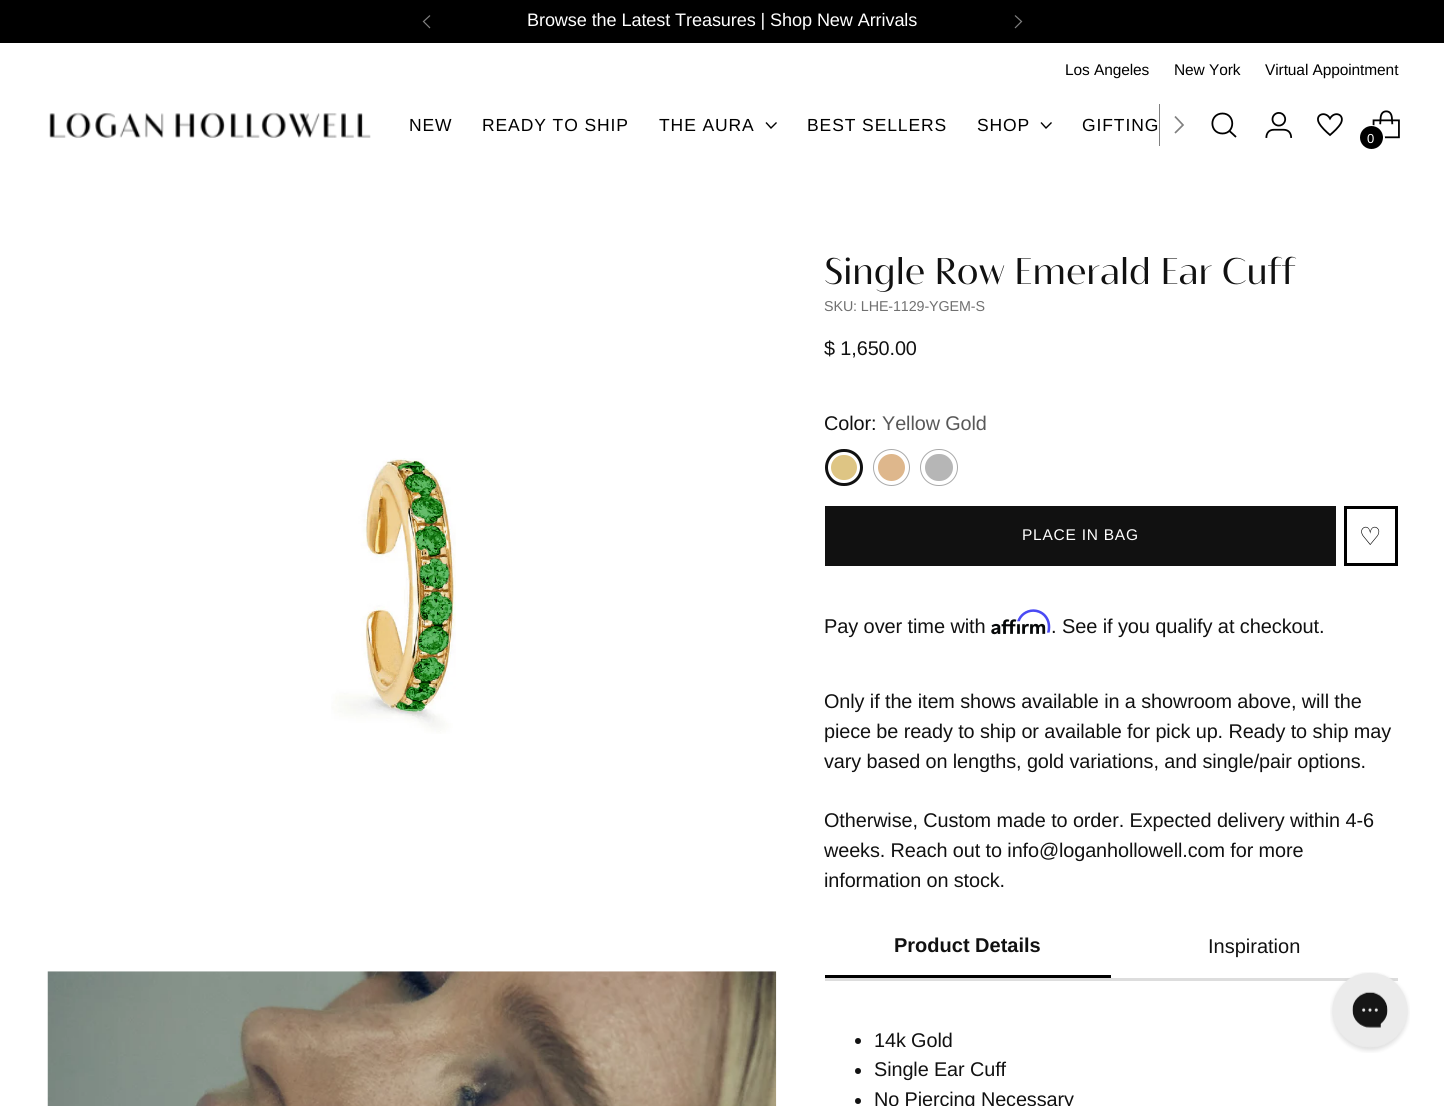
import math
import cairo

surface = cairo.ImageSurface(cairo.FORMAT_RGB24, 1444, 1106)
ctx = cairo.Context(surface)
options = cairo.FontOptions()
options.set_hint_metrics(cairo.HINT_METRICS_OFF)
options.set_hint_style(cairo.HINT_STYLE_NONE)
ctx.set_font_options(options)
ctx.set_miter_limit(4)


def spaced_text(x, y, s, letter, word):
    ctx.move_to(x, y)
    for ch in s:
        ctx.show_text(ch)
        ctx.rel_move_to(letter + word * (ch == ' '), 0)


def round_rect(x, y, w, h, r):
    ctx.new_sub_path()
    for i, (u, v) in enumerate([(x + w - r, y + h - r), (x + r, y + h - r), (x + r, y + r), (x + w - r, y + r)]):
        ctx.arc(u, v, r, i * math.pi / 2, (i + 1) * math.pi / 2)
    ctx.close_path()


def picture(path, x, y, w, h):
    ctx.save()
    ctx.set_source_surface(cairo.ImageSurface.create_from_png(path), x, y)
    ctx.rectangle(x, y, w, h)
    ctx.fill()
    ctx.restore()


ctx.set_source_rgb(1, 1, 1)
ctx.paint()
ctx.set_source_rgb(0, 0, 0)
ctx.rectangle(0, 0, 1444, 43)
ctx.fill()
ctx.select_font_face("Liberation Sans")
ctx.set_font_size(18.1)
ctx.set_source_rgb(1, 1, 1)
spaced_text(527, 26, "Browse the Latest Treasures | Shop New Arrivals", -0.1, 0)
ctx.new_path()
ctx.move_to(430, 15.5)
ctx.line_to(423.5, 21.5)
ctx.line_to(430, 28)
ctx.set_source_rgb(0.502, 0.502, 0.502)
ctx.set_line_width(1.2)
ctx.stroke()
ctx.new_path()
ctx.move_to(1015, 28)
ctx.line_to(1021.5, 21.5)
ctx.line_to(1015, 15.5)
ctx.stroke()
ctx.set_font_size(15.5)
ctx.set_source_rgb(0, 0, 0)
spaced_text(1065, 75, "Los Angeles", -0.1, 0)
spaced_text(1174, 75, "New York", -0.1, 0)
spaced_text(1265, 75, "Virtual Appointment", -0.1, 0)
picture("img1.png", 49, 112, 322, 26)
ctx.set_font_size(17.5)
spaced_text(409, 131, "NEW", 0.9, 0)
spaced_text(482, 131, "READY TO SHIP", 0.9, 0)
spaced_text(659, 131, "THE AURA", 0.9, 0)
ctx.new_path()
ctx.move_to(766, 122.5)
ctx.line_to(771, 128)
ctx.line_to(776.5, 122.5)
ctx.set_line_width(1.4)
ctx.stroke()
spaced_text(807, 131, "BEST SELLERS", 0.9, 0)
spaced_text(977, 131, "SHOP", 0.9, 0)
ctx.new_path()
ctx.move_to(1041, 122.5)
ctx.line_to(1046, 128)
ctx.line_to(1051.5, 122.5)
ctx.stroke()
spaced_text(1082, 131, "GIFTING", 0.9, 0)
ctx.set_source_rgb(0.502, 0.502, 0.502)
ctx.rectangle(1159, 104, 1, 42)
ctx.fill()
ctx.new_path()
ctx.move_to(1175, 133)
ctx.line_to(1183, 125)
ctx.line_to(1175, 116.5)
ctx.set_line_width(1.7)
ctx.stroke()
ctx.new_path()
ctx.move_to(1222.5, 133.5)
ctx.curve_to(1235.5, 133.5, 1235.5, 113.5, 1222.5, 113.5)
ctx.curve_to(1209, 113.5, 1209, 133.5, 1222.5, 133.5)
ctx.close_path()
ctx.set_source_rgb(0, 0, 0)
ctx.set_line_width(1.8)
ctx.set_line_cap(cairo.LINE_CAP_ROUND)
ctx.stroke()
ctx.new_path()
ctx.move_to(1229.5, 131)
ctx.line_to(1236, 137)
ctx.set_line_cap(cairo.LINE_CAP_BUTT)
ctx.stroke()
picture("img2.png", 1265, 112, 28, 26)
ctx.new_path()
ctx.move_to(1330, 135)
ctx.curve_to(1334, 131.5, 1338.5, 127.5, 1341, 123)
ctx.curve_to(1345, 114.5, 1334.5, 110.5, 1330, 118.5)
ctx.curve_to(1325.5, 110.5, 1314.5, 114.5, 1319, 123)
ctx.curve_to(1321.5, 127.5, 1326, 131.5, 1330, 135)
ctx.close_path()
ctx.stroke()
picture("img3.png", 1372, 110, 28, 29)
ctx.arc(1372, 138, 12, 0, 2 * math.pi)
ctx.set_source_rgb(1, 1, 1)
ctx.set_line_width(2)
ctx.stroke()
ctx.set_source_rgb(0, 0, 0)
ctx.arc(1371.5, 137.5, 11.5, 0, 2 * math.pi)
ctx.fill()
ctx.set_font_size(13)
ctx.set_source_rgb(1, 1, 1)
spaced_text(1367, 143, "0", -0.1, 0)
picture("img4.png", 331, 458, 125, 276)
picture("img5.png", 47, 971, 730, 135)
ctx.select_font_face("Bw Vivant")
ctx.set_font_size(34.6)
ctx.set_source_rgb(0.067, 0.067, 0.067)
ctx.move_to(824, 284)
ctx.show_text("Single Row Emerald Ear Cuff")
ctx.select_font_face("Liberation Sans")
ctx.set_font_size(14.3)
ctx.set_source_rgb(0.439, 0.439, 0.439)
spaced_text(824, 311, "SKU: LHE-1129-YGEM-S", -0.1, 0)
ctx.set_font_size(19.85)
ctx.set_source_rgb(0.067, 0.067, 0.067)
spaced_text(824, 355, "$ 1,650.00", -0.1, 0)
spaced_text(824, 430, "Color:", -0.1, 0)
ctx.set_source_rgb(0.345, 0.345, 0.345)
spaced_text(882, 430, "Yellow Gold", -0.1, 0)
ctx.set_source_rgb(0.871, 0.773, 0.518)
round_rect(828, 452, 32, 31, 15.5)
ctx.fill_preserve()
ctx.set_source_rgb(1, 1, 1)
ctx.set_line_width(6)
ctx.stroke()
round_rect(826.5, 450.5, 35, 34, 17)
ctx.set_source_rgb(0.067, 0.067, 0.067)
ctx.set_line_width(3)
ctx.stroke()
ctx.set_source_rgb(0.871, 0.718, 0.549)
ctx.arc(891.5, 467.5, 16, 0, 2 * math.pi)
ctx.fill_preserve()
ctx.set_source_rgb(1, 1, 1)
ctx.set_line_width(5)
ctx.stroke()
ctx.arc(891.5, 467.5, 18, 0, 2 * math.pi)
ctx.set_source_rgb(0.667, 0.667, 0.667)
ctx.set_line_width(1)
ctx.stroke()
ctx.set_source_rgb(0.714, 0.714, 0.714)
round_rect(922.5, 451.5, 33, 32, 16)
ctx.fill_preserve()
ctx.set_source_rgb(1, 1, 1)
ctx.set_line_width(5)
ctx.stroke()
round_rect(920.5, 449.5, 37, 36, 18)
ctx.set_source_rgb(0.667, 0.667, 0.667)
ctx.set_line_width(1)
ctx.stroke()
ctx.save()
ctx.rectangle(825, 506, 511, 60)
ctx.clip()
ctx.set_source_rgb(0.067, 0.067, 0.067)
ctx.new_path()
ctx.move_to(730, 506)
ctx.line_to(1396, 506)
ctx.line_to(1430, 566)
ctx.line_to(765, 566)
ctx.close_path()
ctx.fill()
ctx.restore()
ctx.set_font_size(15.5)
ctx.set_source_rgb(1, 1, 1)
spaced_text(1022, 540, "PLACE IN BAG", 0.75, 0)
ctx.rectangle(1345.5, 507.5, 51, 57)
ctx.set_source_rgb(0, 0, 0)
ctx.set_line_width(3)
ctx.stroke()
ctx.select_font_face("DejaVu Sans")
ctx.set_font_size(25)
ctx.move_to(1359, 545)
ctx.show_text("♡")
ctx.select_font_face("Liberation Sans")
ctx.set_font_size(20)
ctx.set_source_rgb(0.067, 0.067, 0.067)
spaced_text(824, 633, "Pay over time with", -0.1, 0)
picture("img7.png", 991, 619, 55, 16)
picture("img6.png", 1017, 609, 34, 24)
spaced_text(1051, 633, ". See if you qualify at checkout.", -0.1, 0)
ctx.set_font_size(19.85)
spaced_text(824, 708, "Only if the item shows available in a showroom above, will the", -0.1, 0)
spaced_text(824, 738, "piece be ready to ship or available for pick up. Ready to ship may", -0.1, 0)
spaced_text(824, 768, "vary based on lengths, gold variations, and single/pair options.", -0.1, 0)
spaced_text(824, 827, "Otherwise, Custom made to order. Expected delivery within 4-6", -0.1, 0)
spaced_text(824, 857, "weeks. Reach out to info@loganhollowell.com for more", -0.1, 0)
spaced_text(824, 887, "information on stock.", -0.1, 0)
ctx.set_source_rgb(0.867, 0.867, 0.867)
ctx.rectangle(825, 978, 573, 3)
ctx.fill()
ctx.set_source_rgb(0, 0, 0)
ctx.rectangle(825, 975, 286, 3)
ctx.fill()
ctx.select_font_face("Liberation Sans", cairo.FONT_SLANT_NORMAL, cairo.FONT_WEIGHT_BOLD)
ctx.set_font_size(20)
ctx.set_source_rgb(0.067, 0.067, 0.067)
ctx.move_to(894, 952)
ctx.show_text("Product Details")
ctx.select_font_face("Liberation Sans")
ctx.move_to(1208, 953)
ctx.show_text("Inspiration")
ctx.new_path()
ctx.arc(858, 1041, 3, 0, 2 * math.pi)
ctx.fill()
ctx.set_font_size(19.85)
spaced_text(874, 1047, "14k Gold", -0.1, 0)
ctx.new_path()
ctx.arc(858, 1071, 3, 0, 2 * math.pi)
ctx.fill()
spaced_text(874, 1076, "Single Ear Cuff", -0.1, 0)
ctx.new_path()
ctx.arc(858, 1101, 3, 0, 2 * math.pi)
ctx.fill()
spaced_text(874, 1106, "No Piercing Necessary", -0.1, 0)
picture("img8.png", 1330, 972, 80, 81)
surface.write_to_png("page.png")
